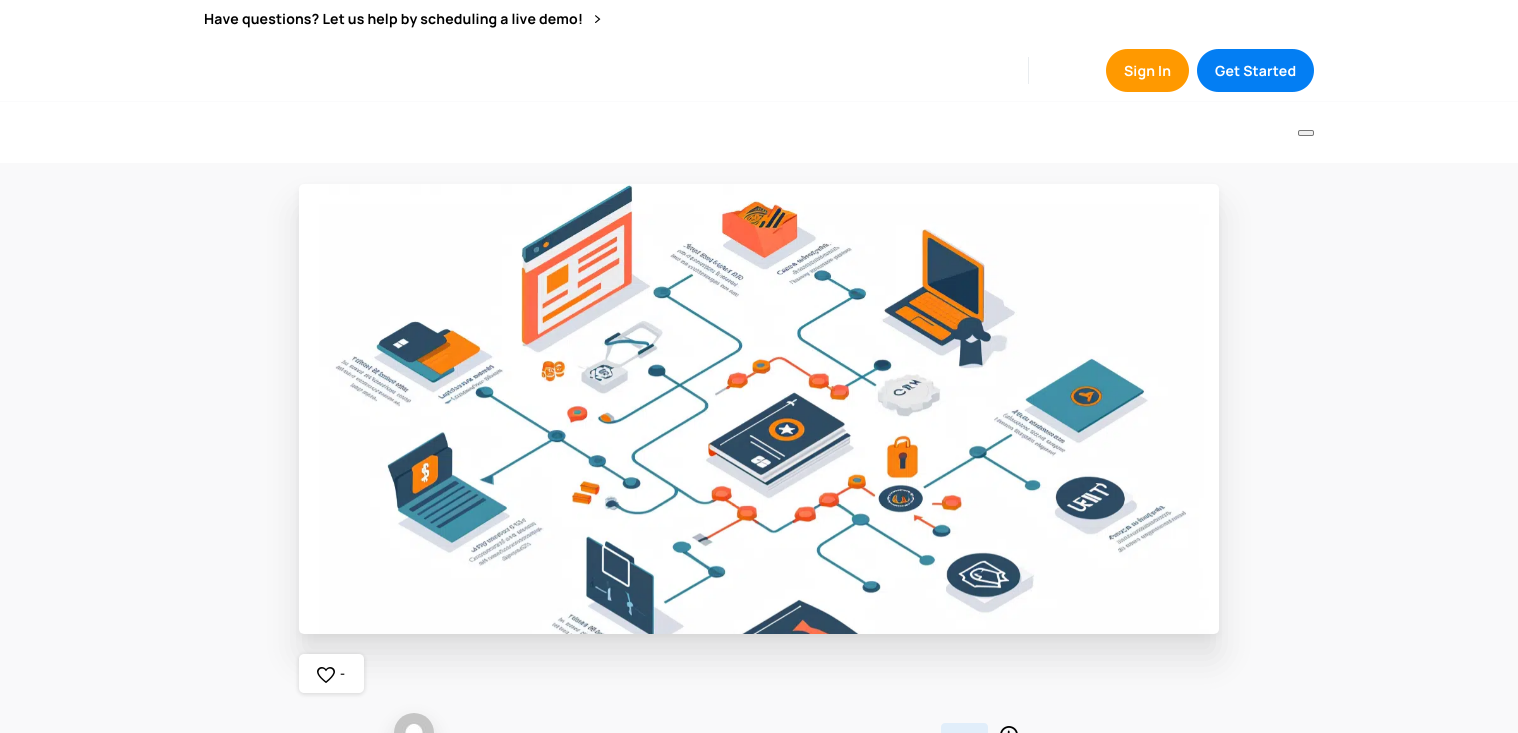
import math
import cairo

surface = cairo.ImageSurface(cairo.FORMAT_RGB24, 1518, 733)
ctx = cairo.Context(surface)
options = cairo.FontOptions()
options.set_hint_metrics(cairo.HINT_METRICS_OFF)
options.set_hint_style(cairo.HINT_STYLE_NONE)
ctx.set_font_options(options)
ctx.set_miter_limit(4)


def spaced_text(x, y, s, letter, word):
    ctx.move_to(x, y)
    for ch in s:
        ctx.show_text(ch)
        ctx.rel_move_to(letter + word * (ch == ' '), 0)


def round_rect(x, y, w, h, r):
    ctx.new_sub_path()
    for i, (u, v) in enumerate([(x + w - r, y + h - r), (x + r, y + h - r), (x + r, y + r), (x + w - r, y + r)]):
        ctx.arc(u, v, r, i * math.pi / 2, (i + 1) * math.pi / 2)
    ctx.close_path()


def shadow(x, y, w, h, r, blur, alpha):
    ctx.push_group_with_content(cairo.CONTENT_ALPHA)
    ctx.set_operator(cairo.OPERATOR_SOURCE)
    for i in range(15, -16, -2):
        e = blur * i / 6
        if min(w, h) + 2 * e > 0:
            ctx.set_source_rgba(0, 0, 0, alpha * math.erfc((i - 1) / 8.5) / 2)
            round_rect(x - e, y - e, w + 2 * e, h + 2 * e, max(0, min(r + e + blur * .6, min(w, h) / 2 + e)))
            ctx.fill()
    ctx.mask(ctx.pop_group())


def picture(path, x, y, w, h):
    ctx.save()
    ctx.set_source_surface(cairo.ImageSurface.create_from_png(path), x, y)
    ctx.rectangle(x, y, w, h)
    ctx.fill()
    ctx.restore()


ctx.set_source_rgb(1, 1, 1)
ctx.paint()
ctx.select_font_face("Manrope", cairo.FONT_SLANT_NORMAL, cairo.FONT_WEIGHT_BOLD)
ctx.set_font_size(14)
ctx.set_source_rgb(0, 0, 0)
spaced_text(204, 24, "Have questions? Let us help by scheduling a live demo!", 0.15, 0)
picture("img1.png", 595, 15, 6, 8)
ctx.set_source_rgb(0.914, 0.925, 0.937)
ctx.rectangle(1028, 57, 1, 27)
ctx.fill()
ctx.set_source_rgb(1, 0.6, 0)
round_rect(1106, 49, 83, 43, 21.5)
ctx.fill()
ctx.set_source_rgb(1, 1, 1)
spaced_text(1124, 76, "Sign In", 0.15, 0)
ctx.set_source_rgb(0.012, 0.494, 0.953)
round_rect(1197, 49, 117, 43, 21.5)
ctx.fill()
ctx.set_source_rgb(1, 1, 1)
spaced_text(1215, 76, "Get Started", 0.15, 0)
ctx.set_source_rgb(0.984, 0.984, 0.988)
ctx.rectangle(0, 101, 1518, 1)
ctx.fill()
ctx.set_source_rgb(0.937, 0.937, 0.937)
round_rect(1298.5, 130.5, 15, 5, 1.5)
ctx.fill_preserve()
ctx.set_source_rgb(0.463, 0.463, 0.463)
ctx.set_line_width(1)
ctx.stroke()
ctx.set_source_rgb(0.973, 0.976, 0.98)
ctx.rectangle(0, 164, 1518, 569)
ctx.fill()
ctx.set_source_rgb(0, 0, 0)
shadow(299, 208, 920, 450, 5, 17.5, 0.1)
ctx.set_source_rgb(0.973, 0.976, 0.98)
ctx.rectangle(0, 163, 1518, 1)
ctx.fill()
ctx.set_source_rgb(0, 0, 0)
shadow(299, 188, 920, 450, 5, 4, 0.05)
picture("img2.png", 299, 184, 920, 450)
shadow(299, 655, 65, 39, 5, 2.5, 0.15)
ctx.set_source_rgb(1, 1, 1)
round_rect(299, 654, 65, 39, 5)
ctx.fill()
picture("img3.png", 317, 667, 18, 16)
ctx.set_font_size(12)
ctx.set_source_rgb(0, 0, 0)
spaced_text(340, 678, "-", 0.15, 0)
ctx.set_source_rgb(0, 0, 0)
shadow(394, 721, 40, 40, 20, 9.5, 0.1)
picture("img4.png", 394, 713, 40, 20)
ctx.set_source_rgb(0.882, 0.933, 0.98)
round_rect(941, 723, 47, 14, 4)
ctx.fill()
picture("img5.png", 1000, 726, 18, 7)
surface.write_to_png("page.png")
